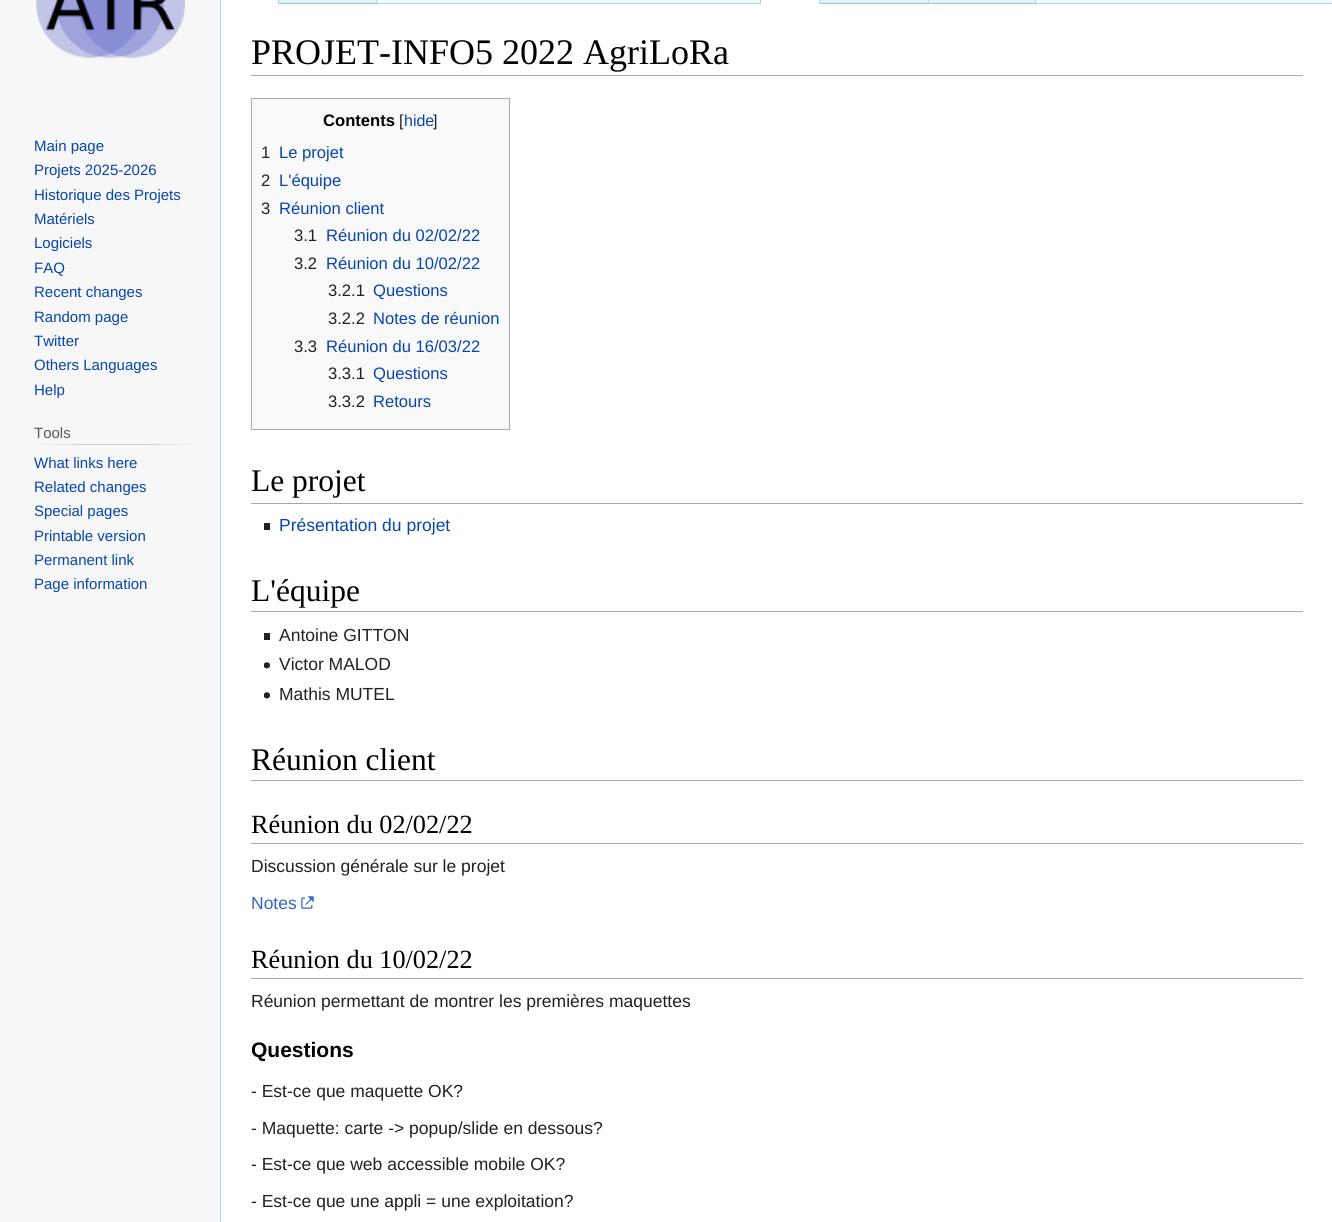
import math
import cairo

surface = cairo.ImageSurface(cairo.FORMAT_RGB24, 1332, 1222)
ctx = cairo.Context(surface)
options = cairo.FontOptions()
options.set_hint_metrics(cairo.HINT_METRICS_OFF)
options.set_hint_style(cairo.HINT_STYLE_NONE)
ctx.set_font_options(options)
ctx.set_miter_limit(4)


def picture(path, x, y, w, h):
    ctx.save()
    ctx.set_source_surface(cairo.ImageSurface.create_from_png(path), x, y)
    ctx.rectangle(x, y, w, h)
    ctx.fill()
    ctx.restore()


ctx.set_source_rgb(0.965, 0.965, 0.965)
ctx.paint()
ctx.set_source_rgb(0.655, 0.843, 0.976)
ctx.rectangle(220, 3, 1, 1219)
ctx.fill()
gradient = cairo.LinearGradient(221, -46, 221, 3.8)
gradient.add_color_stop_rgba(0, 0.655, 0.843, 0.976, 0)
gradient.add_color_stop_rgba(1, 0.655, 0.843, 0.976, 1)
ctx.set_source(gradient)
ctx.rectangle(220, 0, 1, 4)
ctx.fill()
ctx.set_source_rgb(1, 1, 1)
ctx.rectangle(221, 0, 58, 4)
ctx.fill()
gradient = cairo.LinearGradient(278, -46, 278, 3.8)
gradient.add_color_stop_rgba(0, 1, 1, 1, 1)
gradient.add_color_stop_rgba(1, 0.655, 0.843, 0.976, 1)
ctx.set_source(gradient)
ctx.rectangle(278, 0, 1, 4)
ctx.fill()
gradient = cairo.LinearGradient(328, 3.8, 328, -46)
gradient.add_color_stop_rgba(0, 0.467, 0.757, 0.965, 1)
gradient.add_color_stop_rgba(0.03, 0.91, 0.949, 0.973, 1)
gradient.add_color_stop_rgba(1, 1, 1, 1, 1)
ctx.set_source(gradient)
ctx.rectangle(279, 0, 99, 4)
ctx.fill()
gradient = cairo.LinearGradient(377, -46, 377, 3.8)
gradient.add_color_stop_rgba(0, 0.655, 0.843, 0.976, 0)
gradient.add_color_stop_rgba(1, 0.655, 0.843, 0.976, 1)
ctx.set_source(gradient)
ctx.rectangle(376, 0, 1, 4)
ctx.fill()
ctx.set_source_rgb(0.655, 0.843, 0.976)
ctx.rectangle(378, 3, 954, 1)
ctx.fill()
gradient = cairo.LinearGradient(761, -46, 761, 3.8)
gradient.add_color_stop_rgba(0, 0.655, 0.843, 0.976, 0)
gradient.add_color_stop_rgba(1, 0.655, 0.843, 0.976, 1)
ctx.set_source(gradient)
ctx.rectangle(760, 0, 1, 4)
ctx.fill()
ctx.set_source_rgb(1, 1, 1)
ctx.rectangle(761, 0, 59, 4)
ctx.fill()
gradient = cairo.LinearGradient(819, -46, 819, 3.8)
gradient.add_color_stop_rgba(0, 1, 1, 1, 1)
gradient.add_color_stop_rgba(1, 0.655, 0.843, 0.976, 1)
ctx.set_source(gradient)
ctx.rectangle(819, 0, 1, 4)
ctx.fill()
gradient = cairo.LinearGradient(874, 3.8, 874, -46)
gradient.add_color_stop_rgba(0, 0.467, 0.757, 0.965, 1)
gradient.add_color_stop_rgba(0.03, 0.91, 0.949, 0.973, 1)
gradient.add_color_stop_rgba(1, 1, 1, 1, 1)
ctx.set_source(gradient)
ctx.rectangle(820, 0, 109, 4)
ctx.fill()
gradient = cairo.LinearGradient(928, -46, 928, 3.8)
gradient.add_color_stop_rgba(0, 0.655, 0.843, 0.976, 0)
gradient.add_color_stop_rgba(1, 0.655, 0.843, 0.976, 1)
ctx.set_source(gradient)
ctx.rectangle(928, 0, 1, 4)
ctx.fill()
gradient = cairo.LinearGradient(983, 3.8, 983, -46)
gradient.add_color_stop_rgba(0, 0.467, 0.757, 0.965, 1)
gradient.add_color_stop_rgba(0.03, 0.91, 0.949, 0.973, 1)
gradient.add_color_stop_rgba(1, 1, 1, 1, 1)
ctx.set_source(gradient)
ctx.rectangle(929, 0, 107, 4)
ctx.fill()
gradient = cairo.LinearGradient(1036, -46, 1036, 3.8)
gradient.add_color_stop_rgba(0, 0.655, 0.843, 0.976, 0)
gradient.add_color_stop_rgba(1, 0.655, 0.843, 0.976, 1)
ctx.set_source(gradient)
ctx.rectangle(1035, 0, 1, 4)
ctx.fill()
picture("img1.png", 36, 0, 149, 58)
ctx.select_font_face("Liberation Sans")
ctx.set_font_size(15)
ctx.set_source_rgb(0.024, 0.271, 0.678)
ctx.move_to(34, 151)
ctx.show_text("Main page")
ctx.move_to(34, 175)
ctx.show_text("Projets 2025-2026")
ctx.move_to(34, 200)
ctx.show_text("Historique des Projets")
ctx.move_to(34, 224)
ctx.show_text("Matériels")
ctx.move_to(34, 248)
ctx.show_text("Logiciels")
ctx.move_to(34, 273)
ctx.show_text("FAQ")
ctx.move_to(34, 297)
ctx.show_text("Recent changes")
ctx.move_to(34, 322)
ctx.show_text("Random page")
ctx.move_to(34, 346)
ctx.show_text("Twitter")
ctx.move_to(34, 370)
ctx.show_text("Others Languages")
ctx.move_to(34, 395)
ctx.show_text("Help")
gradient = cairo.LinearGradient(34, 444, 198, 444)
gradient.add_color_stop_rgba(0, 0.965, 0.965, 0.965, 1)
gradient.add_color_stop_rgba(0.33, 0.784, 0.8, 0.82, 1)
gradient.add_color_stop_rgba(0.66, 0.784, 0.8, 0.82, 1)
gradient.add_color_stop_rgba(1, 0.965, 0.965, 0.965, 1)
ctx.set_source(gradient)
ctx.rectangle(34, 444, 164, 1)
ctx.fill()
ctx.set_source_rgb(0.329, 0.349, 0.365)
ctx.move_to(34, 438)
ctx.show_text("Tools")
ctx.set_source_rgb(0.024, 0.271, 0.678)
ctx.move_to(34, 468)
ctx.show_text("What links here")
ctx.move_to(34, 492)
ctx.show_text("Related changes")
ctx.move_to(34, 516)
ctx.show_text("Special pages")
ctx.move_to(34, 541)
ctx.show_text("Printable version")
ctx.move_to(34, 565)
ctx.show_text("Permanent link")
ctx.move_to(34, 589)
ctx.show_text("Page information")
ctx.set_source_rgb(1, 1, 1)
ctx.rectangle(221, 4, 1111, 1218)
ctx.fill()
ctx.set_source_rgb(0.635, 0.663, 0.694)
ctx.rectangle(251, 75, 1052, 1)
ctx.fill()
ctx.select_font_face("Liberation Serif")
ctx.set_font_size(36)
ctx.set_source_rgb(0, 0, 0)
ctx.move_to(251, 64)
ctx.show_text("PROJET-INFO5 2022 AgriLoRa")
ctx.set_source_rgb(0.973, 0.976, 0.98)
ctx.rectangle(251.5, 98.5, 258, 331)
ctx.fill_preserve()
ctx.set_source_rgb(0.635, 0.663, 0.694)
ctx.set_line_width(1)
ctx.stroke()
ctx.select_font_face("Liberation Sans", cairo.FONT_SLANT_NORMAL, cairo.FONT_WEIGHT_BOLD)
ctx.set_font_size(16.6)
ctx.set_source_rgb(0, 0, 0)
ctx.move_to(323, 126)
ctx.show_text("Contents")
ctx.select_font_face("Liberation Sans")
ctx.set_font_size(16)
ctx.set_source_rgb(0.125, 0.129, 0.133)
ctx.move_to(399, 126)
ctx.show_text("[")
ctx.set_source_rgb(0.024, 0.271, 0.678)
ctx.move_to(404, 126)
ctx.show_text("hide")
ctx.set_source_rgb(0.125, 0.129, 0.133)
ctx.move_to(433, 126)
ctx.show_text("]")
ctx.set_font_size(16.6)
ctx.move_to(261, 158)
ctx.show_text("1")
ctx.set_source_rgb(0.024, 0.271, 0.678)
ctx.move_to(279, 158)
ctx.show_text("Le projet")
ctx.set_source_rgb(0.125, 0.129, 0.133)
ctx.move_to(261, 186)
ctx.show_text("2")
ctx.set_source_rgb(0.024, 0.271, 0.678)
ctx.move_to(279, 186)
ctx.show_text("L'équipe")
ctx.set_source_rgb(0.125, 0.129, 0.133)
ctx.move_to(261, 214)
ctx.show_text("3")
ctx.set_source_rgb(0.024, 0.271, 0.678)
ctx.move_to(279, 214)
ctx.show_text("Réunion client")
ctx.set_source_rgb(0.125, 0.129, 0.133)
ctx.move_to(294, 241)
ctx.show_text("3.1")
ctx.set_source_rgb(0.024, 0.271, 0.678)
ctx.move_to(326, 241)
ctx.show_text("Réunion du 02/02/22")
ctx.set_source_rgb(0.125, 0.129, 0.133)
ctx.move_to(294, 269)
ctx.show_text("3.2")
ctx.set_source_rgb(0.024, 0.271, 0.678)
ctx.move_to(326, 269)
ctx.show_text("Réunion du 10/02/22")
ctx.set_source_rgb(0.125, 0.129, 0.133)
ctx.move_to(328, 296)
ctx.show_text("3.2.1")
ctx.set_source_rgb(0.024, 0.271, 0.678)
ctx.move_to(373, 296)
ctx.show_text("Questions")
ctx.set_source_rgb(0.125, 0.129, 0.133)
ctx.move_to(328, 324)
ctx.show_text("3.2.2")
ctx.set_source_rgb(0.024, 0.271, 0.678)
ctx.move_to(373, 324)
ctx.show_text("Notes de réunion")
ctx.set_source_rgb(0.125, 0.129, 0.133)
ctx.move_to(294, 352)
ctx.show_text("3.3")
ctx.set_source_rgb(0.024, 0.271, 0.678)
ctx.move_to(326, 352)
ctx.show_text("Réunion du 16/03/22")
ctx.set_source_rgb(0.125, 0.129, 0.133)
ctx.move_to(328, 379)
ctx.show_text("3.3.1")
ctx.set_source_rgb(0.024, 0.271, 0.678)
ctx.move_to(373, 379)
ctx.show_text("Questions")
ctx.set_source_rgb(0.125, 0.129, 0.133)
ctx.move_to(328, 407)
ctx.show_text("3.3.2")
ctx.set_source_rgb(0.024, 0.271, 0.678)
ctx.move_to(373, 407)
ctx.show_text("Retours")
ctx.set_source_rgb(0.635, 0.663, 0.694)
ctx.rectangle(251, 503, 1052, 1)
ctx.fill()
ctx.select_font_face("Liberation Serif")
ctx.set_font_size(31.5)
ctx.set_source_rgb(0, 0, 0)
ctx.move_to(251, 491)
ctx.show_text("Le projet")
ctx.set_source_rgb(0.125, 0.129, 0.133)
ctx.rectangle(264, 523, 6, 7)
ctx.fill()
ctx.select_font_face("Liberation Sans")
ctx.set_font_size(17.5)
ctx.set_source_rgb(0.024, 0.271, 0.678)
ctx.move_to(279, 531)
ctx.show_text("Présentation du projet")
ctx.set_source_rgb(0.635, 0.663, 0.694)
ctx.rectangle(251, 611, 1052, 1)
ctx.fill()
ctx.select_font_face("Liberation Serif")
ctx.set_font_size(31.5)
ctx.set_source_rgb(0, 0, 0)
ctx.move_to(251, 601)
ctx.show_text("L'équipe")
ctx.set_source_rgb(0.125, 0.129, 0.133)
ctx.rectangle(264, 633, 6, 7)
ctx.fill()
ctx.select_font_face("Liberation Sans")
ctx.set_font_size(17.5)
ctx.move_to(279, 641)
ctx.show_text("Antoine GITTON")
picture("img2.png", 264, 662, 6, 7)
ctx.move_to(279, 670)
ctx.show_text("Victor MALOD")
picture("img3.png", 264, 692, 6, 7)
ctx.move_to(279, 700)
ctx.show_text("Mathis MUTEL")
ctx.set_source_rgb(0.635, 0.663, 0.694)
ctx.rectangle(251, 780, 1052, 1)
ctx.fill()
ctx.select_font_face("Liberation Serif")
ctx.set_font_size(31.5)
ctx.set_source_rgb(0, 0, 0)
ctx.move_to(251, 770)
ctx.show_text("Réunion client")
ctx.set_source_rgb(0.635, 0.663, 0.694)
ctx.rectangle(251, 843, 1052, 1)
ctx.fill()
ctx.set_font_size(26.25)
ctx.set_source_rgb(0, 0, 0)
ctx.move_to(251, 833)
ctx.show_text("Réunion du 02/02/22")
ctx.select_font_face("Liberation Sans")
ctx.set_font_size(17.5)
ctx.set_source_rgb(0.125, 0.129, 0.133)
ctx.move_to(251, 872)
ctx.show_text("Discussion générale sur le projet")
ctx.set_source_rgb(0.2, 0.4, 0.733)
ctx.move_to(251, 909)
ctx.show_text("Notes")
picture("img4.png", 301, 896, 13, 13)
ctx.set_source_rgb(0.635, 0.663, 0.694)
ctx.rectangle(251, 978, 1052, 1)
ctx.fill()
ctx.select_font_face("Liberation Serif")
ctx.set_font_size(26.25)
ctx.set_source_rgb(0, 0, 0)
ctx.move_to(251, 968)
ctx.show_text("Réunion du 10/02/22")
ctx.select_font_face("Liberation Sans")
ctx.set_font_size(17.5)
ctx.set_source_rgb(0.125, 0.129, 0.133)
ctx.move_to(251, 1007)
ctx.show_text("Réunion permettant de montrer les premières maquettes")
ctx.select_font_face("Liberation Sans", cairo.FONT_SLANT_NORMAL, cairo.FONT_WEIGHT_BOLD)
ctx.set_font_size(21)
ctx.set_source_rgb(0, 0, 0)
ctx.move_to(251, 1057)
ctx.show_text("Questions")
ctx.select_font_face("Liberation Sans")
ctx.set_font_size(17.5)
ctx.set_source_rgb(0.125, 0.129, 0.133)
ctx.move_to(251, 1097)
ctx.show_text("- Est-ce que maquette OK?")
ctx.move_to(251, 1134)
ctx.show_text("- Maquette: carte -> popup/slide en dessous?")
ctx.move_to(251, 1170)
ctx.show_text("- Est-ce que web accessible mobile OK?")
ctx.move_to(251, 1207)
ctx.show_text("- Est-ce que une appli = une exploitation?")
surface.write_to_png("page.png")
